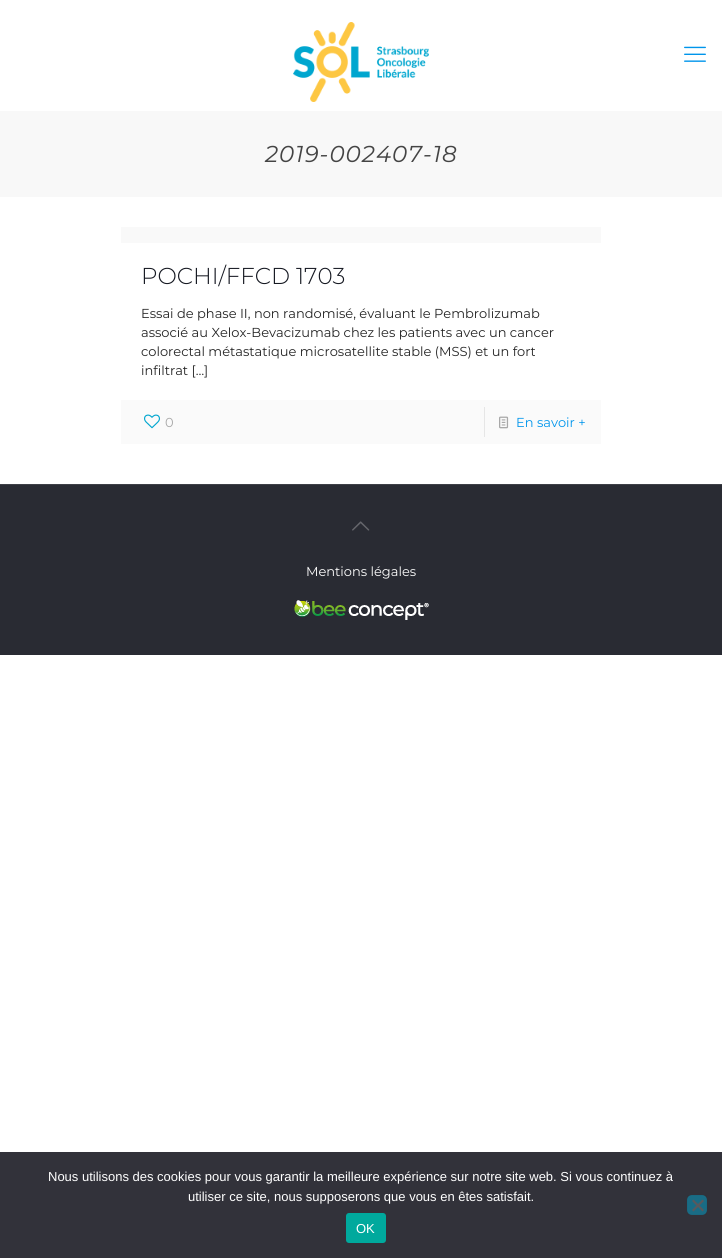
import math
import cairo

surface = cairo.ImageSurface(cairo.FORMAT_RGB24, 722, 1258)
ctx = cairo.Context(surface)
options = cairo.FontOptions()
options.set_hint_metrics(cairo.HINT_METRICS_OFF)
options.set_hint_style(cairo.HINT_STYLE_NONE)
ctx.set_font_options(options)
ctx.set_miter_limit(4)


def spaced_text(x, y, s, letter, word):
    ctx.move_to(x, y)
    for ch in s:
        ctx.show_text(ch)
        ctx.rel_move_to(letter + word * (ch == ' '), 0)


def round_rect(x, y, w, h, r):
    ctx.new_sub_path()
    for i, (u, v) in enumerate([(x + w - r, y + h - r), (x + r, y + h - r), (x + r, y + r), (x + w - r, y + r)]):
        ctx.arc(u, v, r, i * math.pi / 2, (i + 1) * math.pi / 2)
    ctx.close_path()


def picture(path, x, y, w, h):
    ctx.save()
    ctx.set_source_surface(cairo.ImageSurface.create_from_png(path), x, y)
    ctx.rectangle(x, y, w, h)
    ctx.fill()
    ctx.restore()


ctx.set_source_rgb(1, 1, 1)
ctx.paint()
picture("img1.png", 293, 22, 136, 80)
picture("img2.png", 684, 46, 22, 16)
ctx.set_source_rgb(0.969, 0.969, 0.969)
ctx.rectangle(0, 111, 722, 86)
ctx.fill()
ctx.select_font_face("Montserrat", cairo.FONT_SLANT_ITALIC)
ctx.set_font_size(23)
ctx.set_source_rgb(0.267, 0.267, 0.267)
spaced_text(265, 162, "2019-002407-18", 1, 0)
ctx.set_source_rgb(0.973, 0.973, 0.973)
ctx.rectangle(121, 227, 480, 16)
ctx.fill()
ctx.select_font_face("Montserrat Light")
ctx.set_source_rgb(0.086, 0.098, 0.133)
ctx.move_to(141, 284)
ctx.show_text("POCHI/FFCD 1703")
ctx.select_font_face("Montserrat")
ctx.set_font_size(13)
ctx.set_source_rgb(0.137, 0.137, 0.137)
ctx.move_to(141, 318)
ctx.show_text("Essai de phase II, non randomisé, évaluant le Pembrolizumab")
ctx.move_to(141, 337)
ctx.show_text("associé au Xelox-Bevacizumab chez les patients avec un cancer")
ctx.move_to(141, 356)
ctx.show_text("colorectal métastatique microsatellite stable (MSS) et un fort")
ctx.move_to(141, 375)
ctx.show_text("infiltrat […]")
ctx.set_source_rgb(0.98, 0.98, 0.98)
ctx.rectangle(121, 400, 480, 44)
ctx.fill()
picture("img3.png", 144, 414, 16, 15)
ctx.set_source_rgb(0.659, 0.659, 0.659)
ctx.move_to(165, 427)
ctx.show_text("0")
ctx.set_source_rgb(0.902, 0.902, 0.902)
ctx.rectangle(484, 407, 1, 30)
ctx.fill()
picture("img4.png", 499, 416, 10, 13)
ctx.set_source_rgb(0, 0.584, 0.922)
ctx.move_to(516, 427)
ctx.show_text("En savoir +")
ctx.set_source_rgb(0.161, 0.169, 0.2)
ctx.rectangle(0, 485, 722, 170)
ctx.fill()
ctx.set_source_rgb(0.243, 0.251, 0.278)
ctx.rectangle(0, 484, 722, 1)
ctx.fill()
picture("img5.png", 352, 521, 18, 10)
ctx.set_source_rgb(1, 1, 1)
ctx.move_to(306, 576)
ctx.show_text("Mentions légales")
picture("img6.png", 294, 600, 135, 20)
ctx.set_source_rgb(0.196, 0.196, 0.227)
ctx.rectangle(0, 1152, 722, 106)
ctx.fill()
ctx.select_font_face("Liberation Sans")
ctx.set_source_rgb(1, 1, 1)
ctx.move_to(48, 1181)
ctx.show_text("Nous utilisons des cookies pour vous garantir la meilleure expérience sur notre site web. Si vous continuez à")
ctx.move_to(188, 1201)
ctx.show_text("utiliser ce site, nous supposerons que vous en êtes satisfait.")
ctx.set_source_rgb(0.098, 0.424, 0.522)
round_rect(687, 1195, 20, 20, 5)
ctx.fill()
ctx.rectangle(687.5, 1195.5, 19, 19)
ctx.set_source_rgba(0.098, 0.098, 0.114, 0.03)
ctx.set_line_width(1)
ctx.stroke()
ctx.set_source_rgb(0.349, 0.349, 0.365)
ctx.new_path()
ctx.move_to(702.5, 1199.5)
ctx.line_to(704, 1201)
ctx.line_to(693.5, 1211.5)
ctx.line_to(692, 1210)
ctx.close_path()
ctx.fill()
ctx.new_path()
ctx.move_to(692, 1201)
ctx.line_to(693.5, 1199.5)
ctx.line_to(704, 1210)
ctx.line_to(702.5, 1211.5)
ctx.close_path()
ctx.fill()
ctx.set_source_rgb(0, 0.663, 0.616)
round_rect(346, 1213, 40, 30, 3)
ctx.fill()
ctx.set_source_rgb(1, 1, 1)
ctx.move_to(356, 1233)
ctx.show_text("OK")
surface.write_to_png("page.png")
